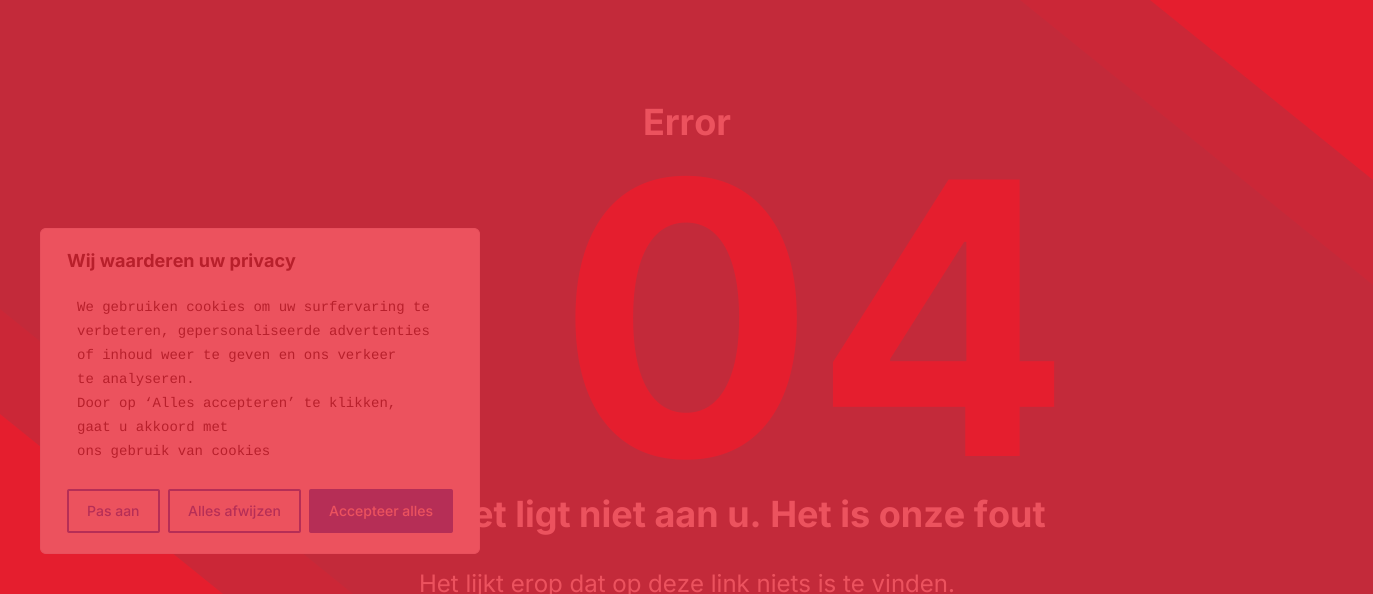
import math
import cairo

surface = cairo.ImageSurface(cairo.FORMAT_RGB24, 1373, 594)
ctx = cairo.Context(surface)
options = cairo.FontOptions()
options.set_hint_metrics(cairo.HINT_METRICS_OFF)
options.set_hint_style(cairo.HINT_STYLE_NONE)
ctx.set_font_options(options)
ctx.set_miter_limit(4)


def round_rect(x, y, w, h, r):
    ctx.new_sub_path()
    for i, (u, v) in enumerate([(x + w - r, y + h - r), (x + r, y + h - r), (x + r, y + r), (x + w - r, y + r)]):
        ctx.arc(u, v, r, i * math.pi / 2, (i + 1) * math.pi / 2)
    ctx.close_path()


ctx.set_source_rgb(0.765, 0.165, 0.227)
ctx.paint()
ctx.set_source_rgb(0.796, 0.153, 0.216)
ctx.new_path()
ctx.move_to(0, 594)
ctx.line_to(353, 594)
ctx.line_to(0, 309)
ctx.close_path()
ctx.fill()
ctx.set_source_rgb(0.898, 0.118, 0.18)
ctx.new_path()
ctx.move_to(0, 594)
ctx.line_to(223, 594)
ctx.line_to(0, 414)
ctx.close_path()
ctx.fill()
ctx.set_source_rgb(0.922, 0.322, 0.369)
round_rect(40.5, 228.5, 439, 325, 5.5)
ctx.fill_preserve()
ctx.set_source_rgb(0.91, 0.31, 0.361)
ctx.set_line_width(1)
ctx.stroke()
ctx.select_font_face("Inter", cairo.FONT_SLANT_NORMAL, cairo.FONT_WEIGHT_BOLD)
ctx.set_font_size(18)
ctx.set_source_rgb(0.722, 0.122, 0.169)
ctx.move_to(67, 267)
ctx.show_text("Wij waarderen uw privacy")
ctx.select_font_face("Liberation Mono")
ctx.set_font_size(14)
ctx.move_to(77, 311)
ctx.show_text("We gebruiken cookies om uw surfervaring te")
ctx.move_to(77, 335)
ctx.show_text("verbeteren, gepersonaliseerde advertenties")
ctx.move_to(77, 359)
ctx.show_text("of inhoud weer te geven en ons verkeer")
ctx.move_to(77, 383)
ctx.show_text("te analyseren.")
ctx.move_to(77, 407)
ctx.show_text("Door op ‘Alles accepteren’ te klikken,")
ctx.move_to(77, 431)
ctx.show_text("gaat u akkoord met")
ctx.move_to(77, 455)
ctx.show_text("ons gebruik van cookies")
round_rect(68, 490, 91, 42, 1)
ctx.set_source_rgb(0.714, 0.18, 0.337)
ctx.set_line_width(2)
ctx.stroke()
ctx.select_font_face("Inter Medium")
ctx.move_to(87, 516)
ctx.show_text("Pas aan")
round_rect(169, 490, 131, 42, 1)
ctx.stroke()
ctx.move_to(188, 516)
ctx.show_text("Alles afwijzen")
round_rect(310, 490, 142, 42, 1)
ctx.fill_preserve()
ctx.stroke()
ctx.set_source_rgb(0.922, 0.322, 0.369)
ctx.move_to(329, 516)
ctx.show_text("Accepteer alles")
ctx.set_source_rgb(0.796, 0.153, 0.216)
ctx.new_path()
ctx.move_to(1020, 0)
ctx.line_to(1373, 285)
ctx.line_to(1373, 0)
ctx.close_path()
ctx.fill()
ctx.set_source_rgb(0.898, 0.118, 0.18)
ctx.new_path()
ctx.move_to(1150, 0)
ctx.line_to(1373, 180)
ctx.line_to(1373, 0)
ctx.close_path()
ctx.fill()
ctx.select_font_face("Inter", cairo.FONT_SLANT_NORMAL, cairo.FONT_WEIGHT_BOLD)
ctx.set_font_size(36)
ctx.set_source_rgb(0.922, 0.322, 0.369)
ctx.move_to(643, 135)
ctx.show_text("Error")
ctx.set_font_size(380)
ctx.set_source_rgb(0.898, 0.118, 0.18)
ctx.move_to(558, 456)
ctx.show_text("04")
ctx.set_font_size(36)
ctx.set_source_rgb(0.922, 0.322, 0.369)
ctx.move_to(472, 527)
ctx.show_text("et ligt niet aan u. Het is onze fout")
ctx.select_font_face("Inter")
ctx.set_font_size(24)
ctx.move_to(419, 592)
ctx.show_text("Het lijkt erop dat op deze link niets is te vinden.")
surface.write_to_png("page.png")
